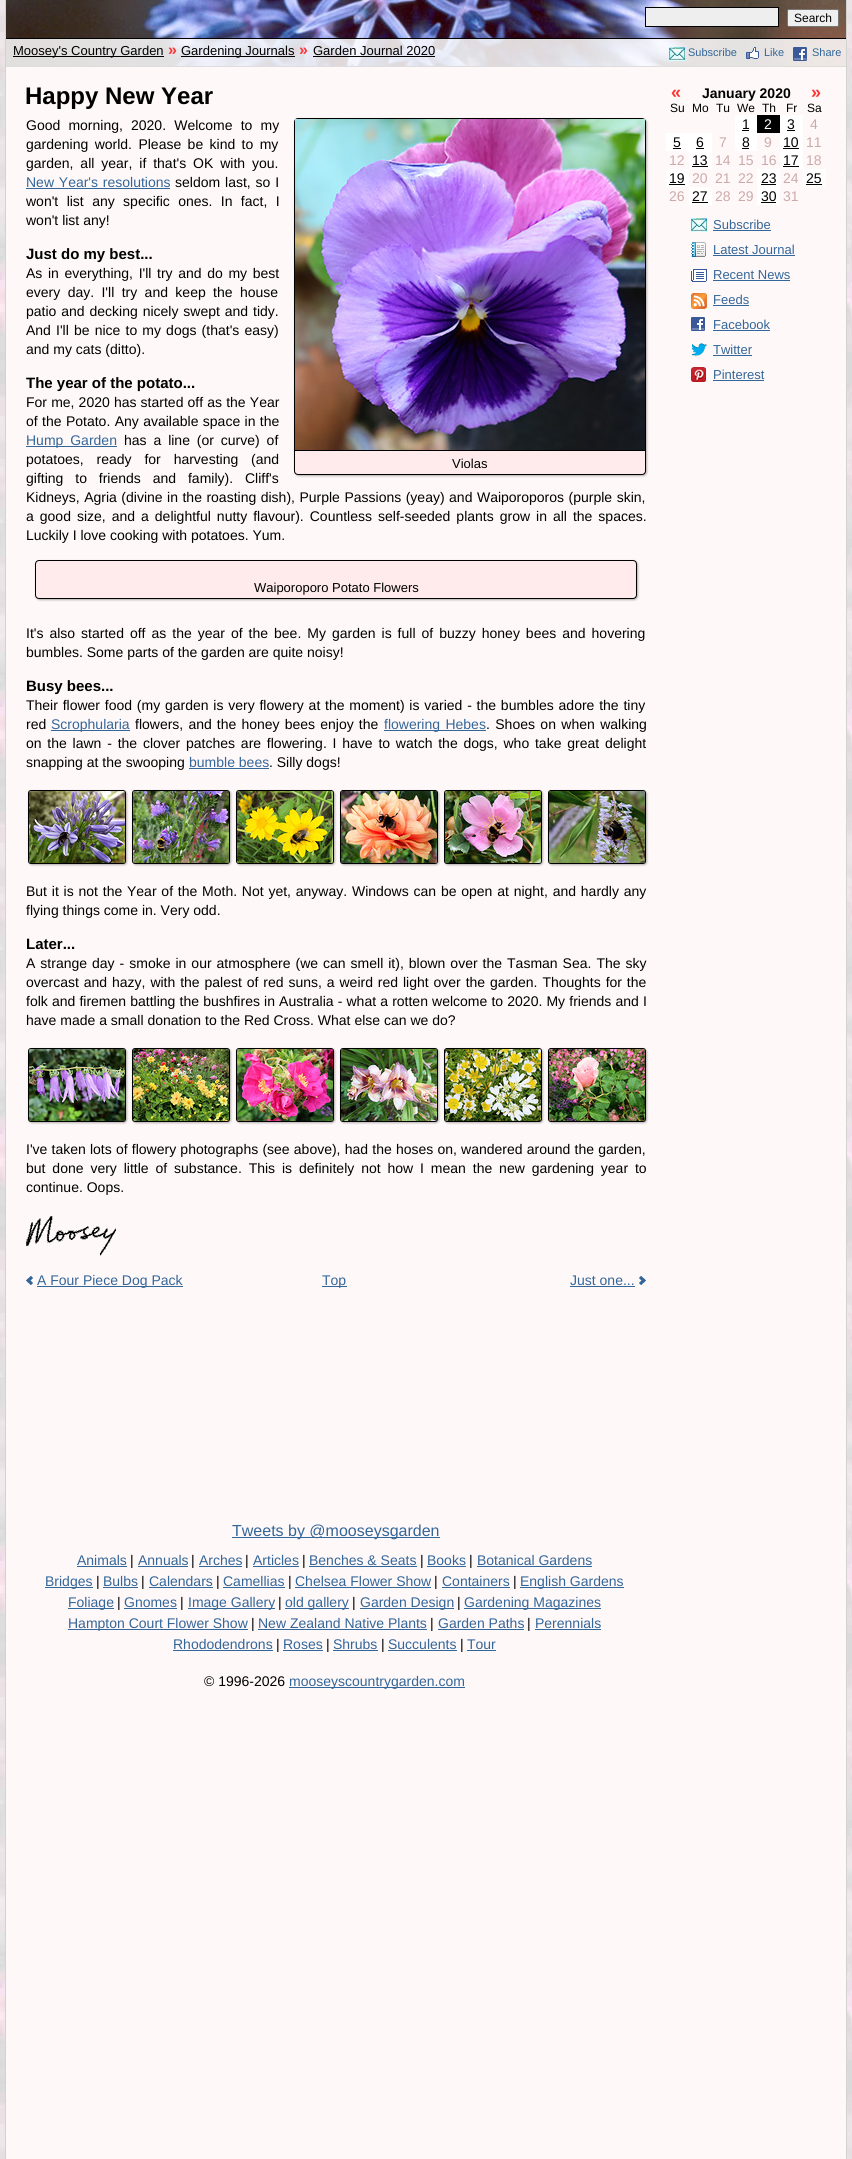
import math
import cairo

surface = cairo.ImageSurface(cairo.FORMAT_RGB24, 852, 2159)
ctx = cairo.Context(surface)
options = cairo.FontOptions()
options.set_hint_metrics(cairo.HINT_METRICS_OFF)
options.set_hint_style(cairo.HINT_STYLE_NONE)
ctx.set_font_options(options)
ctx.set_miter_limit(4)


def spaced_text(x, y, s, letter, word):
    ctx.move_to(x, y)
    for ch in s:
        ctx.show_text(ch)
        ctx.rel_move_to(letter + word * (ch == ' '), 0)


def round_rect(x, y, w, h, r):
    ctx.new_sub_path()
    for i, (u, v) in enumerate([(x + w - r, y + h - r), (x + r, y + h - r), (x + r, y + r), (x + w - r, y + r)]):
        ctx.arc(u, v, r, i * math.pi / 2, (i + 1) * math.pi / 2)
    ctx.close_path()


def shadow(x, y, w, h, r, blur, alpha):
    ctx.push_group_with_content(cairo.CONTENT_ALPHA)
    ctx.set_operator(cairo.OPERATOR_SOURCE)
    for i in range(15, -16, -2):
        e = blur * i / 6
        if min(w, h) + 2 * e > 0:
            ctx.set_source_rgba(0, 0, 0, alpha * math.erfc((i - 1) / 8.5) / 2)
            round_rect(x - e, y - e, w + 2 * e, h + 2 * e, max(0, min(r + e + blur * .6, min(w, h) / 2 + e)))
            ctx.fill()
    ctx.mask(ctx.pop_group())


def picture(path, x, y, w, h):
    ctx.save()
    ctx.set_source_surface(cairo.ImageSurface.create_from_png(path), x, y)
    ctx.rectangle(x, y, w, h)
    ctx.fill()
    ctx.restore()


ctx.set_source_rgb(1, 1, 1)
ctx.paint()
picture("img1.png", 0, 0, 852, 2159)
ctx.set_source_rgb(1, 0.969, 0.969)
ctx.rectangle(6, 67, 840, 2092)
ctx.fill()
ctx.set_source_rgb(0.824, 0.824, 0.824)
ctx.set_fill_rule(cairo.FILL_RULE_EVEN_ODD)
ctx.new_path()
ctx.move_to(5, 0)
ctx.line_to(847, 0)
ctx.line_to(847, 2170)
ctx.curve_to(847, 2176, 843, 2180, 837, 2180)
ctx.line_to(15, 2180)
ctx.curve_to(9, 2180, 5, 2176, 5, 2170)
ctx.close_path()
ctx.move_to(6, 0)
ctx.line_to(846, 0)
ctx.line_to(846, 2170)
ctx.curve_to(846, 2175, 842, 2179, 837, 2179)
ctx.line_to(15, 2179)
ctx.curve_to(10, 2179, 6, 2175, 6, 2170)
ctx.close_path()
ctx.fill()
picture("img2.png", 6, 0, 840, 66)
ctx.set_source_rgb(0.867, 0.867, 0.867)
ctx.rectangle(6, 66, 840, 1)
ctx.fill()
ctx.set_source_rgb(0.933, 0.933, 0.933)
ctx.rectangle(645.5, 7.5, 133, 19)
ctx.fill_preserve()
ctx.set_source_rgb(0, 0, 0)
ctx.set_line_width(1)
ctx.stroke()
ctx.set_source_rgb(0.937, 0.937, 0.937)
round_rect(787.5, 9.5, 51, 17, 1.5)
ctx.fill_preserve()
ctx.set_source_rgb(0.463, 0.463, 0.463)
ctx.stroke()
ctx.select_font_face("Liberation Sans")
ctx.set_font_size(12)
ctx.set_source_rgb(0, 0, 0)
ctx.move_to(794, 22)
ctx.show_text("Search")
ctx.rectangle(13, 56, 151, 1)
ctx.fill()
ctx.set_font_size(13)
ctx.move_to(13, 55)
ctx.show_text("Moosey's Country Garden")
ctx.select_font_face("Liberation Sans", cairo.FONT_SLANT_NORMAL, cairo.FONT_WEIGHT_BOLD)
ctx.set_font_size(16)
ctx.set_source_rgb(1, 0.2, 0.2)
ctx.move_to(168, 55)
ctx.show_text("»")
ctx.set_source_rgb(0, 0, 0)
ctx.rectangle(181, 56, 114, 1)
ctx.fill()
ctx.select_font_face("Liberation Sans")
ctx.set_font_size(13)
ctx.move_to(181, 55)
ctx.show_text("Gardening Journals")
ctx.select_font_face("Liberation Sans", cairo.FONT_SLANT_NORMAL, cairo.FONT_WEIGHT_BOLD)
ctx.set_font_size(16)
ctx.set_source_rgb(1, 0.2, 0.2)
ctx.move_to(299, 55)
ctx.show_text("»")
ctx.select_font_face("Liberation Sans")
ctx.set_font_size(13)
ctx.set_source_rgb(0, 0, 0)
ctx.move_to(313, 55)
ctx.show_text("Garden Journal 2020")
ctx.rectangle(313, 56, 122, 1)
ctx.fill()
picture("img3.png", 669, 47, 17, 14)
ctx.set_font_size(11)
ctx.set_source_rgb(0.2, 0.4, 0.6)
ctx.move_to(688, 56)
ctx.show_text("Subscribe")
picture("img4.png", 746, 47, 13, 12)
ctx.move_to(764, 56)
ctx.show_text("Like")
picture("img5.png", 793, 47, 14, 14)
ctx.move_to(812, 56)
ctx.show_text("Share")
ctx.select_font_face("Liberation Sans", cairo.FONT_SLANT_NORMAL, cairo.FONT_WEIGHT_BOLD)
ctx.set_font_size(24)
ctx.set_source_rgb(0, 0, 0)
ctx.move_to(25, 104)
ctx.show_text("Happy New Year")
ctx.select_font_face("Liberation Sans")
ctx.set_font_size(14)
spaced_text(26, 130, "Good morning, 2020. Welcome to my", 0, 4.25)
spaced_text(26, 149, "gardening world. Please be kind to my", 0, 2.5)
spaced_text(26, 168, "garden, all year, if that's OK with you.", 0, 3)
ctx.set_source_rgb(0.2, 0.4, 0.6)
spaced_text(26, 187, "New Year's resolutions", 0, 0.9)
ctx.rectangle(26, 188, 144, 1)
ctx.fill()
ctx.set_source_rgb(0, 0, 0)
spaced_text(175, 187, "seldom last, so I", 0, 1)
spaced_text(26, 206, "won't list any specific ones. In fact, I", 0, 4.5)
ctx.move_to(26, 225)
ctx.show_text("won't list any!")
ctx.select_font_face("Liberation Sans", cairo.FONT_SLANT_NORMAL, cairo.FONT_WEIGHT_BOLD)
ctx.set_font_size(15)
ctx.move_to(26, 259)
ctx.show_text("Just do my best...")
ctx.select_font_face("Liberation Sans")
ctx.set_font_size(14)
spaced_text(26, 278, "As in everything, I'll try and do my best", 0, 1.75)
spaced_text(26, 297, "every day. I'll try and keep the house", 0, 3.5)
spaced_text(26, 316, "patio and decking nicely swept and tidy.", 0, 1)
spaced_text(26, 335, "And I'll be nice to my dogs (that's easy)", 0, 1.25)
ctx.move_to(26, 354)
ctx.show_text("and my cats (ditto).")
ctx.select_font_face("Liberation Sans", cairo.FONT_SLANT_NORMAL, cairo.FONT_WEIGHT_BOLD)
ctx.set_font_size(15)
ctx.move_to(26, 388)
ctx.show_text("The year of the potato...")
ctx.select_font_face("Liberation Sans")
ctx.set_font_size(14)
spaced_text(26, 407, "For me, 2020 has started off as the Year", 0, 0.25)
spaced_text(26, 426, "of the Potato. Any available space in the", 0, 0.5)
ctx.set_source_rgb(0.2, 0.4, 0.6)
ctx.rectangle(26, 446, 91, 1)
ctx.fill()
spaced_text(26, 445, "Hump Garden", 0, 3)
ctx.set_source_rgb(0, 0, 0)
spaced_text(124, 445, "has a line (or curve) of", 0, 3)
spaced_text(26, 464, "potatoes, ready for harvesting (and", 0, 9)
spaced_text(26, 483, "gifting to friends and family). Cliff's", 0, 8)
spaced_text(26, 502, "Kidneys, Agria (divine in the roasting dish), Purple Passions (yeay) and Waiporoporos (purple skin,", 0, 0.6)
spaced_text(26, 521, "a good size, and a delightful nutty flavour). Countless self-seeded plants grow in all the spaces.", 0, 2.1)
ctx.move_to(26, 540)
ctx.show_text("Luckily I love cooking with potatoes. Yum.")
ctx.set_source_rgb(0, 0, 0)
shadow(295, 119, 352, 357, 4, 1, 0.3)
ctx.set_source_rgb(1, 0.918, 0.918)
round_rect(294.5, 118.5, 351, 356, 3.5)
ctx.fill_preserve()
ctx.set_source_rgb(0, 0, 0)
ctx.stroke()
picture("img6.png", 295, 119, 350, 331)
ctx.rectangle(295, 450, 350, 1)
ctx.fill()
ctx.set_font_size(13)
ctx.move_to(452, 468)
ctx.show_text("Violas")
ctx.set_source_rgb(0, 0, 0)
shadow(36, 561, 602, 39, 4, 1, 0.3)
ctx.set_source_rgb(1, 0.918, 0.918)
round_rect(35.5, 560.5, 601, 38, 3.5)
ctx.fill_preserve()
ctx.set_source_rgb(0, 0, 0)
ctx.stroke()
ctx.move_to(254, 592)
ctx.show_text("Waiporoporo Potato Flowers")
ctx.set_font_size(14)
spaced_text(26, 638, "It's also started off as the year of the bee. My garden is full of buzzy honey bees and hovering", 0, 2.1)
ctx.move_to(26, 657)
ctx.show_text("bumbles. Some parts of the garden are quite noisy!")
ctx.select_font_face("Liberation Sans", cairo.FONT_SLANT_NORMAL, cairo.FONT_WEIGHT_BOLD)
ctx.set_font_size(15)
ctx.move_to(26, 691)
ctx.show_text("Busy bees...")
ctx.select_font_face("Liberation Sans")
ctx.set_font_size(14)
spaced_text(26, 710, "Their flower food (my garden is very flowery at the moment) is varied - the bumbles adore the tiny", 0, 0.9)
ctx.move_to(26, 729)
ctx.show_text("red")
ctx.set_source_rgb(0.2, 0.4, 0.6)
ctx.rectangle(51, 730, 79, 1)
ctx.fill()
ctx.move_to(51, 729)
ctx.show_text("Scrophularia")
ctx.set_source_rgb(0, 0, 0)
spaced_text(135, 729, "flowers, and the honey bees enjoy the", 0, 1.25)
ctx.set_source_rgb(0.2, 0.4, 0.6)
ctx.rectangle(384, 730, 102, 1)
ctx.fill()
spaced_text(384, 729, "flowering Hebes", 0, 1.5)
ctx.set_source_rgb(0, 0, 0)
spaced_text(486, 729, ". Shoes on when walking", 0, 1.5)
spaced_text(26, 748, "on the lawn - the clover patches are flowering. I have to watch the dogs, who take great delight", 0, 1.9)
ctx.move_to(26, 767)
ctx.show_text("snapping at the swooping")
ctx.set_source_rgb(0.2, 0.4, 0.6)
ctx.move_to(189, 767)
ctx.show_text("bumble bees")
ctx.rectangle(189, 768, 80, 1)
ctx.fill()
ctx.set_source_rgb(0, 0, 0)
ctx.move_to(269, 767)
ctx.show_text(". Silly dogs!")
ctx.set_source_rgb(0, 0, 0)
shadow(29, 791, 98, 74, 3, 1, 0.3)
round_rect(28.5, 790.5, 97, 73, 2.5)
ctx.set_source_rgb(0, 0, 0)
ctx.stroke()
picture("img7.png", 29, 791, 96, 72)
ctx.set_source_rgb(0, 0, 0)
shadow(133, 791, 98, 74, 3, 1, 0.3)
round_rect(132.5, 790.5, 97, 73, 2.5)
ctx.set_source_rgb(0, 0, 0)
ctx.stroke()
picture("img8.png", 133, 791, 96, 72)
ctx.set_source_rgb(0, 0, 0)
shadow(237, 791, 98, 74, 3, 1, 0.3)
round_rect(236.5, 790.5, 97, 73, 2.5)
ctx.set_source_rgb(0, 0, 0)
ctx.stroke()
picture("img9.png", 237, 791, 96, 72)
ctx.set_source_rgb(0, 0, 0)
shadow(341, 791, 98, 74, 3, 1, 0.3)
round_rect(340.5, 790.5, 97, 73, 2.5)
ctx.set_source_rgb(0, 0, 0)
ctx.stroke()
picture("img10.png", 341, 791, 96, 72)
ctx.set_source_rgb(0, 0, 0)
shadow(445, 791, 98, 74, 3, 1, 0.3)
round_rect(444.5, 790.5, 97, 73, 2.5)
ctx.set_source_rgb(0, 0, 0)
ctx.stroke()
picture("img11.png", 445, 791, 96, 72)
ctx.set_source_rgb(0, 0, 0)
shadow(549, 791, 98, 74, 3, 1, 0.3)
round_rect(548.5, 790.5, 97, 73, 2.5)
ctx.set_source_rgb(0, 0, 0)
ctx.stroke()
picture("img12.png", 549, 791, 96, 72)
spaced_text(26, 896, "But it is not the Year of the Moth. Not yet, anyway. Windows can be open at night, and hardly any", 0, 0.9)
ctx.move_to(26, 915)
ctx.show_text("flying things come in. Very odd.")
ctx.select_font_face("Liberation Sans", cairo.FONT_SLANT_NORMAL, cairo.FONT_WEIGHT_BOLD)
ctx.set_font_size(15)
ctx.move_to(26, 949)
ctx.show_text("Later...")
ctx.select_font_face("Liberation Sans")
ctx.set_font_size(14)
spaced_text(26, 968, "A strange day - smoke in our atmosphere (we can smell it), blown over the Tasman Sea. The sky", 0, 1.1)
spaced_text(26, 987, "overcast and hazy, with the palest of red suns, a weird red light over the garden. Thoughts for the", 0, 1)
spaced_text(26, 1006, "folk and firemen battling the bushfires in Australia - what a rotten welcome to 2020. My friends and I", 0, 0.25)
ctx.move_to(26, 1025)
ctx.show_text("have made a small donation to the Red Cross. What else can we do?")
ctx.set_source_rgb(0, 0, 0)
shadow(29, 1049, 98, 74, 3, 1, 0.3)
round_rect(28.5, 1048.5, 97, 73, 2.5)
ctx.set_source_rgb(0, 0, 0)
ctx.stroke()
picture("img13.png", 29, 1049, 96, 72)
ctx.set_source_rgb(0, 0, 0)
shadow(133, 1049, 98, 74, 3, 1, 0.3)
round_rect(132.5, 1048.5, 97, 73, 2.5)
ctx.set_source_rgb(0, 0, 0)
ctx.stroke()
picture("img14.png", 133, 1049, 96, 72)
ctx.set_source_rgb(0, 0, 0)
shadow(237, 1049, 98, 74, 3, 1, 0.3)
round_rect(236.5, 1048.5, 97, 73, 2.5)
ctx.set_source_rgb(0, 0, 0)
ctx.stroke()
picture("img15.png", 237, 1049, 96, 72)
ctx.set_source_rgb(0, 0, 0)
shadow(341, 1049, 98, 74, 3, 1, 0.3)
round_rect(340.5, 1048.5, 97, 73, 2.5)
ctx.set_source_rgb(0, 0, 0)
ctx.stroke()
picture("img16.png", 341, 1049, 96, 72)
ctx.set_source_rgb(0, 0, 0)
shadow(445, 1049, 98, 74, 3, 1, 0.3)
round_rect(444.5, 1048.5, 97, 73, 2.5)
ctx.set_source_rgb(0, 0, 0)
ctx.stroke()
picture("img17.png", 445, 1049, 96, 72)
ctx.set_source_rgb(0, 0, 0)
shadow(549, 1049, 98, 74, 3, 1, 0.3)
round_rect(548.5, 1048.5, 97, 73, 2.5)
ctx.set_source_rgb(0, 0, 0)
ctx.stroke()
picture("img18.png", 549, 1049, 96, 72)
spaced_text(26, 1154, "I've taken lots of flowery photographs (see above), had the hoses on, wandered around the garden,", 0, 0.3)
spaced_text(26, 1173, "but done very little of substance. This is definitely not how I mean the new gardening year to", 0, 3)
ctx.move_to(26, 1192)
ctx.show_text("continue. Oops.")
picture("img19.png", 26, 1216, 90, 40)
picture("img20.png", 26, 1276, 7, 9)
ctx.set_source_rgb(0.2, 0.4, 0.6)
ctx.rectangle(37, 1286, 146, 1)
ctx.fill()
ctx.move_to(37, 1285)
ctx.show_text("A Four Piece Dog Pack")
ctx.rectangle(322, 1286, 25, 1)
ctx.fill()
ctx.move_to(322, 1285)
ctx.show_text("Top")
picture("img21.png", 639, 1276, 7, 9)
ctx.move_to(570, 1285)
ctx.show_text("Just one...")
ctx.rectangle(570, 1286, 65, 1)
ctx.fill()
ctx.rectangle(232, 1537, 208, 1)
ctx.fill()
ctx.set_font_size(16)
ctx.move_to(232, 1536)
ctx.show_text("Tweets by @mooseysgarden")
ctx.set_font_size(14)
ctx.move_to(77, 1565)
ctx.show_text("Animals")
ctx.rectangle(77, 1566, 50, 1)
ctx.fill()
ctx.set_source_rgb(0, 0, 0)
ctx.move_to(130, 1565)
ctx.show_text("|")
ctx.set_source_rgb(0.2, 0.4, 0.6)
ctx.move_to(138, 1565)
ctx.show_text("Annuals")
ctx.rectangle(138, 1566, 50, 1)
ctx.fill()
ctx.set_source_rgb(0, 0, 0)
ctx.move_to(191, 1565)
ctx.show_text("|")
ctx.set_source_rgb(0.2, 0.4, 0.6)
ctx.move_to(199, 1565)
ctx.show_text("Arches")
ctx.rectangle(199, 1566, 43, 1)
ctx.fill()
ctx.set_source_rgb(0, 0, 0)
ctx.move_to(245, 1565)
ctx.show_text("|")
ctx.set_source_rgb(0.2, 0.4, 0.6)
ctx.move_to(253, 1565)
ctx.show_text("Articles")
ctx.rectangle(253, 1566, 46, 1)
ctx.fill()
ctx.set_source_rgb(0, 0, 0)
ctx.move_to(302, 1565)
ctx.show_text("|")
ctx.set_source_rgb(0.2, 0.4, 0.6)
ctx.move_to(309, 1565)
ctx.show_text("Benches & Seats")
ctx.rectangle(309, 1566, 108, 1)
ctx.fill()
ctx.set_source_rgb(0, 0, 0)
ctx.move_to(420, 1565)
ctx.show_text("|")
ctx.set_source_rgb(0.2, 0.4, 0.6)
ctx.move_to(427, 1565)
ctx.show_text("Books")
ctx.rectangle(427, 1566, 39, 1)
ctx.fill()
ctx.set_source_rgb(0, 0, 0)
ctx.move_to(469, 1565)
ctx.show_text("|")
ctx.set_source_rgb(0.2, 0.4, 0.6)
ctx.move_to(477, 1565)
ctx.show_text("Botanical Gardens")
ctx.rectangle(477, 1566, 115, 1)
ctx.fill()
ctx.rectangle(45, 1587, 48, 1)
ctx.fill()
ctx.move_to(45, 1586)
ctx.show_text("Bridges")
ctx.set_source_rgb(0, 0, 0)
ctx.move_to(96, 1586)
ctx.show_text("|")
ctx.set_source_rgb(0.2, 0.4, 0.6)
ctx.move_to(103, 1586)
ctx.show_text("Bulbs")
ctx.rectangle(103, 1587, 35, 1)
ctx.fill()
ctx.set_source_rgb(0, 0, 0)
ctx.move_to(141, 1586)
ctx.show_text("|")
ctx.set_source_rgb(0.2, 0.4, 0.6)
ctx.move_to(149, 1586)
ctx.show_text("Calendars")
ctx.rectangle(149, 1587, 64, 1)
ctx.fill()
ctx.set_source_rgb(0, 0, 0)
ctx.move_to(216, 1586)
ctx.show_text("|")
ctx.set_source_rgb(0.2, 0.4, 0.6)
ctx.move_to(223, 1586)
ctx.show_text("Camellias")
ctx.rectangle(223, 1587, 62, 1)
ctx.fill()
ctx.set_source_rgb(0, 0, 0)
ctx.move_to(288, 1586)
ctx.show_text("|")
ctx.set_source_rgb(0.2, 0.4, 0.6)
ctx.move_to(295, 1586)
ctx.show_text("Chelsea Flower Show")
ctx.rectangle(295, 1587, 136, 1)
ctx.fill()
ctx.set_source_rgb(0, 0, 0)
ctx.move_to(434, 1586)
ctx.show_text("|")
ctx.set_source_rgb(0.2, 0.4, 0.6)
ctx.move_to(442, 1586)
ctx.show_text("Containers")
ctx.rectangle(442, 1587, 68, 1)
ctx.fill()
ctx.set_source_rgb(0, 0, 0)
ctx.move_to(513, 1586)
ctx.show_text("|")
ctx.set_source_rgb(0.2, 0.4, 0.6)
ctx.rectangle(520, 1587, 104, 1)
ctx.fill()
ctx.move_to(520, 1586)
ctx.show_text("English Gardens")
ctx.rectangle(68, 1608, 46, 1)
ctx.fill()
ctx.move_to(68, 1607)
ctx.show_text("Foliage")
ctx.set_source_rgb(0, 0, 0)
ctx.move_to(117, 1607)
ctx.show_text("|")
ctx.set_source_rgb(0.2, 0.4, 0.6)
ctx.move_to(124, 1607)
ctx.show_text("Gnomes")
ctx.rectangle(124, 1608, 53, 1)
ctx.fill()
ctx.set_source_rgb(0, 0, 0)
ctx.move_to(180, 1607)
ctx.show_text("|")
ctx.set_source_rgb(0.2, 0.4, 0.6)
ctx.rectangle(188, 1608, 87, 1)
ctx.fill()
ctx.move_to(188, 1607)
ctx.show_text("Image Gallery")
ctx.set_source_rgb(0, 0, 0)
ctx.move_to(278, 1607)
ctx.show_text("|")
ctx.set_source_rgb(0.2, 0.4, 0.6)
ctx.rectangle(285, 1608, 64, 1)
ctx.fill()
ctx.move_to(285, 1607)
ctx.show_text("old gallery")
ctx.set_source_rgb(0, 0, 0)
ctx.move_to(352, 1607)
ctx.show_text("|")
ctx.set_source_rgb(0.2, 0.4, 0.6)
ctx.rectangle(360, 1608, 94, 1)
ctx.fill()
ctx.move_to(360, 1607)
ctx.show_text("Garden Design")
ctx.set_source_rgb(0, 0, 0)
ctx.move_to(457, 1607)
ctx.show_text("|")
ctx.set_source_rgb(0.2, 0.4, 0.6)
ctx.rectangle(464, 1608, 137, 1)
ctx.fill()
ctx.move_to(464, 1607)
ctx.show_text("Gardening Magazines")
ctx.rectangle(68, 1629, 180, 1)
ctx.fill()
ctx.move_to(68, 1628)
ctx.show_text("Hampton Court Flower Show")
ctx.set_source_rgb(0, 0, 0)
ctx.move_to(251, 1628)
ctx.show_text("|")
ctx.set_source_rgb(0.2, 0.4, 0.6)
ctx.move_to(258, 1628)
ctx.show_text("New Zealand Native Plants")
ctx.rectangle(258, 1629, 169, 1)
ctx.fill()
ctx.set_source_rgb(0, 0, 0)
ctx.move_to(430, 1628)
ctx.show_text("|")
ctx.set_source_rgb(0.2, 0.4, 0.6)
ctx.move_to(438, 1628)
ctx.show_text("Garden Paths")
ctx.rectangle(438, 1629, 86, 1)
ctx.fill()
ctx.set_source_rgb(0, 0, 0)
ctx.move_to(527, 1628)
ctx.show_text("|")
ctx.set_source_rgb(0.2, 0.4, 0.6)
ctx.move_to(535, 1628)
ctx.show_text("Perennials")
ctx.rectangle(535, 1629, 66, 1)
ctx.fill()
ctx.move_to(173, 1649)
ctx.show_text("Rhododendrons")
ctx.rectangle(173, 1650, 100, 1)
ctx.fill()
ctx.set_source_rgb(0, 0, 0)
ctx.move_to(276, 1649)
ctx.show_text("|")
ctx.set_source_rgb(0.2, 0.4, 0.6)
ctx.move_to(283, 1649)
ctx.show_text("Roses")
ctx.rectangle(283, 1650, 40, 1)
ctx.fill()
ctx.set_source_rgb(0, 0, 0)
ctx.move_to(326, 1649)
ctx.show_text("|")
ctx.set_source_rgb(0.2, 0.4, 0.6)
ctx.move_to(333, 1649)
ctx.show_text("Shrubs")
ctx.rectangle(333, 1650, 45, 1)
ctx.fill()
ctx.set_source_rgb(0, 0, 0)
ctx.move_to(381, 1649)
ctx.show_text("|")
ctx.set_source_rgb(0.2, 0.4, 0.6)
ctx.move_to(388, 1649)
ctx.show_text("Succulents")
ctx.rectangle(388, 1650, 69, 1)
ctx.fill()
ctx.set_source_rgb(0, 0, 0)
ctx.move_to(460, 1649)
ctx.show_text("|")
ctx.set_source_rgb(0.2, 0.4, 0.6)
ctx.move_to(467, 1649)
ctx.show_text("Tour")
ctx.rectangle(467, 1650, 29, 1)
ctx.fill()
ctx.set_source_rgb(0, 0, 0)
ctx.move_to(204, 1686)
ctx.show_text("© 1996-2026")
ctx.set_source_rgb(0.2, 0.4, 0.6)
ctx.rectangle(289, 1687, 176, 1)
ctx.fill()
ctx.move_to(289, 1686)
ctx.show_text("mooseyscountrygarden.com")
ctx.select_font_face("Liberation Sans", cairo.FONT_SLANT_NORMAL, cairo.FONT_WEIGHT_BOLD)
ctx.set_font_size(18)
ctx.set_source_rgb(1, 0.2, 0.2)
ctx.move_to(671, 98)
ctx.show_text("«")
ctx.set_font_size(14)
ctx.set_source_rgb(0, 0, 0)
ctx.move_to(702, 98)
ctx.show_text("January 2020")
ctx.set_font_size(18)
ctx.set_source_rgb(1, 0.2, 0.2)
ctx.move_to(811, 98)
ctx.show_text("»")
ctx.select_font_face("Liberation Sans")
ctx.set_font_size(12)
ctx.set_source_rgb(0, 0, 0)
ctx.move_to(670, 112)
ctx.show_text("Su")
ctx.move_to(692, 112)
ctx.show_text("Mo")
ctx.move_to(716, 112)
ctx.show_text("Tu")
ctx.move_to(737, 112)
ctx.show_text("We")
ctx.move_to(762, 112)
ctx.show_text("Th")
ctx.move_to(786, 112)
ctx.show_text("Fr")
ctx.move_to(807, 112)
ctx.show_text("Sa")
ctx.set_source_rgb(1, 1, 1)
ctx.rectangle(735, 115, 22, 36)
ctx.fill()
ctx.set_font_size(14)
ctx.set_source_rgb(0, 0, 0)
ctx.move_to(742, 129)
ctx.show_text("1")
ctx.rectangle(742, 130, 7, 1)
ctx.fill()
ctx.rectangle(757, 115, 23, 18)
ctx.fill()
ctx.set_source_rgb(1, 1, 1)
ctx.move_to(764, 129)
ctx.show_text("2")
ctx.rectangle(780, 115, 23, 54)
ctx.fill()
ctx.set_source_rgb(0, 0, 0)
ctx.move_to(787, 129)
ctx.show_text("3")
ctx.rectangle(787, 130, 8, 1)
ctx.fill()
ctx.set_source_rgb(0.8, 0.667, 0.667)
ctx.move_to(810, 129)
ctx.show_text("4")
ctx.set_source_rgb(1, 1, 1)
ctx.rectangle(666, 133, 46, 18)
ctx.fill()
ctx.set_source_rgb(0, 0, 0)
ctx.move_to(673, 147)
ctx.show_text("5")
ctx.rectangle(673, 148, 8, 1)
ctx.fill()
ctx.move_to(696, 147)
ctx.show_text("6")
ctx.rectangle(696, 148, 8, 1)
ctx.fill()
ctx.set_source_rgb(0.8, 0.667, 0.667)
ctx.move_to(719, 147)
ctx.show_text("7")
ctx.set_source_rgb(0, 0, 0)
ctx.move_to(742, 147)
ctx.show_text("8")
ctx.rectangle(742, 148, 7, 1)
ctx.fill()
ctx.set_source_rgb(0.8, 0.667, 0.667)
ctx.move_to(764, 147)
ctx.show_text("9")
ctx.set_source_rgb(0, 0, 0)
ctx.move_to(783, 147)
ctx.show_text("10")
ctx.rectangle(783, 148, 16, 1)
ctx.fill()
ctx.set_source_rgb(0.8, 0.667, 0.667)
ctx.move_to(806, 147)
ctx.show_text("11")
ctx.move_to(669, 165)
ctx.show_text("12")
ctx.set_source_rgb(1, 1, 1)
ctx.rectangle(689, 151, 23, 18)
ctx.fill()
ctx.set_source_rgb(0, 0, 0)
ctx.move_to(692, 165)
ctx.show_text("13")
ctx.rectangle(692, 166, 16, 1)
ctx.fill()
ctx.set_source_rgb(0.8, 0.667, 0.667)
ctx.move_to(715, 165)
ctx.show_text("14")
ctx.move_to(738, 165)
ctx.show_text("15")
ctx.move_to(761, 165)
ctx.show_text("16")
ctx.set_source_rgb(0, 0, 0)
ctx.move_to(783, 165)
ctx.show_text("17")
ctx.rectangle(783, 166, 16, 1)
ctx.fill()
ctx.set_source_rgb(0.8, 0.667, 0.667)
ctx.move_to(806, 165)
ctx.show_text("18")
ctx.set_source_rgb(1, 1, 1)
ctx.rectangle(666, 169, 23, 18)
ctx.fill()
ctx.set_source_rgb(0, 0, 0)
ctx.move_to(669, 183)
ctx.show_text("19")
ctx.rectangle(669, 184, 16, 1)
ctx.fill()
ctx.set_source_rgb(0.8, 0.667, 0.667)
ctx.move_to(692, 183)
ctx.show_text("20")
ctx.move_to(715, 183)
ctx.show_text("21")
ctx.move_to(738, 183)
ctx.show_text("22")
ctx.set_source_rgb(1, 1, 1)
ctx.rectangle(757, 169, 23, 36)
ctx.fill()
ctx.set_source_rgb(0, 0, 0)
ctx.move_to(761, 183)
ctx.show_text("23")
ctx.rectangle(761, 184, 15, 1)
ctx.fill()
ctx.set_source_rgb(0.8, 0.667, 0.667)
ctx.move_to(783, 183)
ctx.show_text("24")
ctx.set_source_rgb(1, 1, 1)
ctx.rectangle(803, 169, 23, 18)
ctx.fill()
ctx.set_source_rgb(0, 0, 0)
ctx.move_to(806, 183)
ctx.show_text("25")
ctx.rectangle(806, 184, 16, 1)
ctx.fill()
ctx.set_source_rgb(0.8, 0.667, 0.667)
ctx.move_to(669, 201)
ctx.show_text("26")
ctx.set_source_rgb(1, 1, 1)
ctx.rectangle(689, 187, 23, 18)
ctx.fill()
ctx.set_source_rgb(0, 0, 0)
ctx.move_to(692, 201)
ctx.show_text("27")
ctx.rectangle(692, 202, 16, 1)
ctx.fill()
ctx.set_source_rgb(0.8, 0.667, 0.667)
ctx.move_to(715, 201)
ctx.show_text("28")
ctx.move_to(738, 201)
ctx.show_text("29")
ctx.set_source_rgb(0, 0, 0)
ctx.move_to(761, 201)
ctx.show_text("30")
ctx.rectangle(761, 202, 15, 1)
ctx.fill()
ctx.set_source_rgb(0.8, 0.667, 0.667)
ctx.move_to(783, 201)
ctx.show_text("31")
picture("img22.png", 691, 218, 16, 14)
ctx.set_font_size(13)
ctx.set_source_rgb(0.2, 0.4, 0.6)
ctx.move_to(713, 229)
ctx.show_text("Subscribe")
ctx.rectangle(713, 230, 58, 1)
ctx.fill()
picture("img23.png", 691, 242, 15, 15)
ctx.move_to(713, 254)
ctx.show_text("Latest Journal")
ctx.rectangle(713, 255, 82, 1)
ctx.fill()
picture("img24.png", 691, 269, 16, 13)
ctx.move_to(713, 279)
ctx.show_text("Recent News")
ctx.rectangle(713, 280, 77, 1)
ctx.fill()
picture("img25.png", 691, 293, 16, 16)
ctx.move_to(713, 304)
ctx.show_text("Feeds")
ctx.rectangle(713, 305, 36, 1)
ctx.fill()
picture("img26.png", 691, 317, 14, 14)
ctx.move_to(713, 329)
ctx.show_text("Facebook")
ctx.rectangle(713, 330, 57, 1)
ctx.fill()
picture("img27.png", 692, 343, 15, 14)
ctx.move_to(713, 354)
ctx.show_text("Twitter")
ctx.rectangle(713, 355, 39, 1)
ctx.fill()
picture("img28.png", 691, 367, 15, 15)
ctx.move_to(713, 379)
ctx.show_text("Pinterest")
ctx.rectangle(713, 380, 51, 1)
ctx.fill()
surface.write_to_png("page.png")
